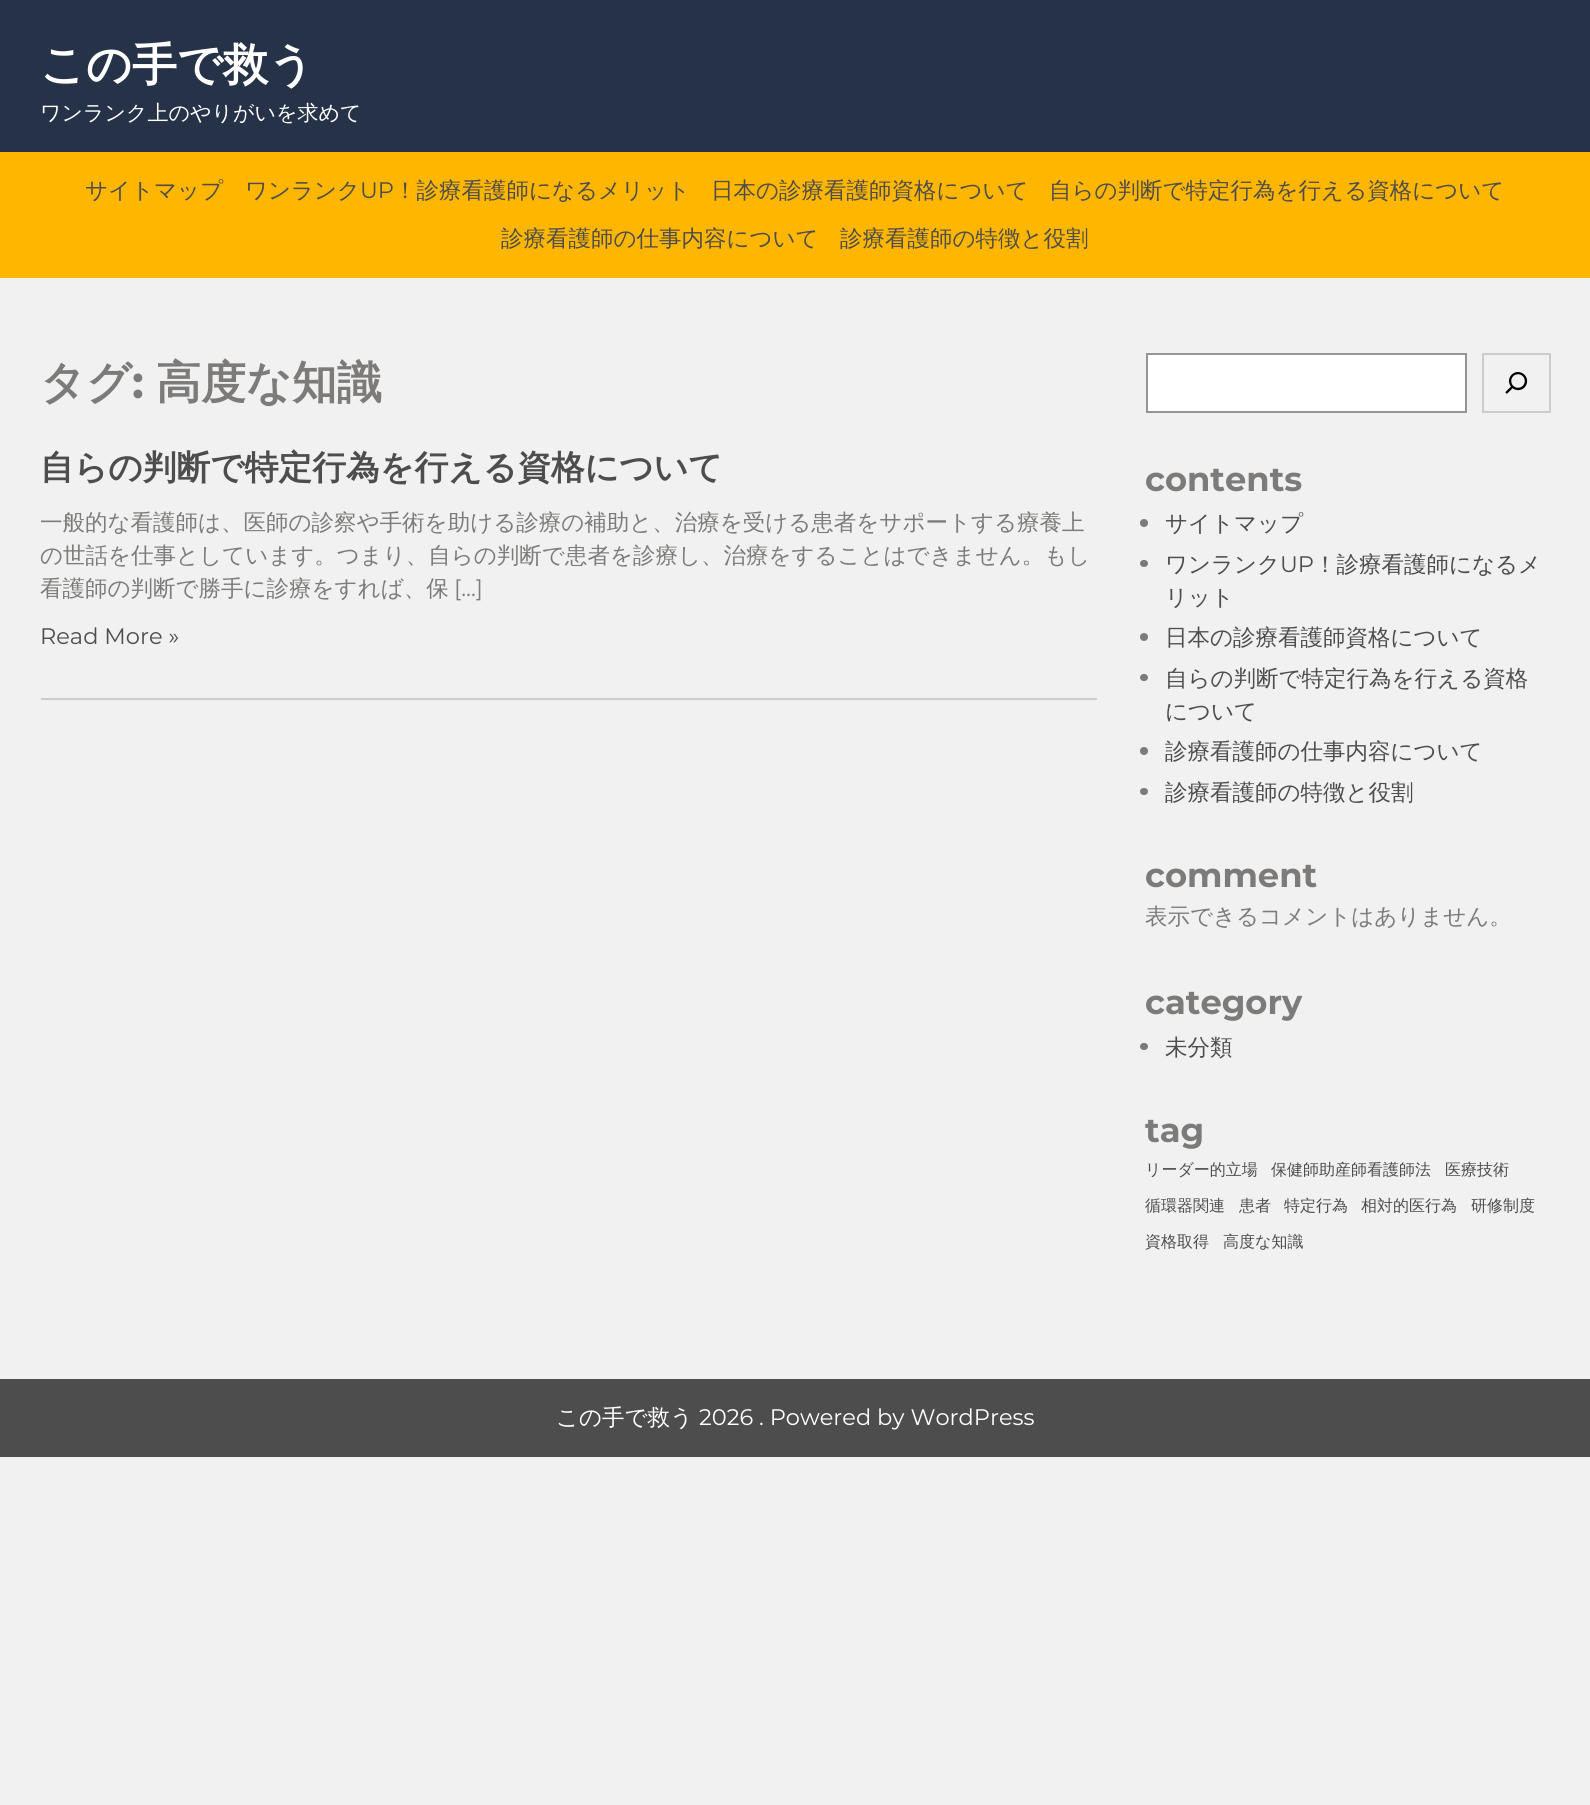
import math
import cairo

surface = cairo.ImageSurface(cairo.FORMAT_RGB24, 1590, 1805)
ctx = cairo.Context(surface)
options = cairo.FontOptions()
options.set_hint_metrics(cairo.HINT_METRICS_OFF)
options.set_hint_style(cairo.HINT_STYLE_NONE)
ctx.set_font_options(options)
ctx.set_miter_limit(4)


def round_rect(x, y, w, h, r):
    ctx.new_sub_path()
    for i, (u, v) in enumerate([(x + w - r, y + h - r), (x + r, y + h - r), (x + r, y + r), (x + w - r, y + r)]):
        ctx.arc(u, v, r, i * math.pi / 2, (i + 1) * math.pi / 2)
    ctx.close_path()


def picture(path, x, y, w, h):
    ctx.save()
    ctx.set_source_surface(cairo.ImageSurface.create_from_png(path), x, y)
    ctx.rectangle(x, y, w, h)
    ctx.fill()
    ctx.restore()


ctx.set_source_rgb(0.945, 0.945, 0.945)
ctx.paint()
ctx.set_source_rgb(0.149, 0.196, 0.278)
ctx.rectangle(0, 0, 1590, 152)
ctx.fill()
ctx.select_font_face("WenQuanYi Zen Hei", cairo.FONT_SLANT_NORMAL, cairo.FONT_WEIGHT_BOLD)
ctx.set_font_size(45)
ctx.set_source_rgb(1, 1, 1)
ctx.move_to(40, 80)
ctx.show_text("この手で救う")
ctx.select_font_face("WenQuanYi Zen Hei Medium")
ctx.set_font_size(21)
ctx.move_to(40, 120)
ctx.show_text("ワンランク上のやりがいを求めて")
ctx.set_source_rgb(1, 0.714, 0)
ctx.rectangle(0, 152, 1590, 126)
ctx.fill()
ctx.set_font_size(22.5)
ctx.set_source_rgb(0.302, 0.302, 0.302)
ctx.move_to(85, 198)
ctx.show_text("サイトマップ")
ctx.move_to(245, 198)
ctx.show_text("ワンランク")
ctx.select_font_face("Montserrat")
ctx.move_to(360, 198)
ctx.show_text("UP")
ctx.select_font_face("WenQuanYi Zen Hei Medium")
ctx.move_to(394, 198)
ctx.show_text("！診療看護師になるメリット")
ctx.move_to(711, 198)
ctx.show_text("日本の診療看護師資格について")
ctx.move_to(1049, 198)
ctx.show_text("自らの判断で特定行為を行える資格について")
ctx.move_to(501, 246)
ctx.show_text("診療看護師の仕事内容について")
ctx.move_to(840, 246)
ctx.show_text("診療看護師の特徴と役割")
ctx.select_font_face("WenQuanYi Zen Hei", cairo.FONT_SLANT_NORMAL, cairo.FONT_WEIGHT_BOLD)
ctx.set_font_size(45)
ctx.set_source_rgb(0.486, 0.482, 0.475)
ctx.move_to(40, 398)
ctx.show_text("タグ")
ctx.select_font_face("Montserrat", cairo.FONT_SLANT_NORMAL, cairo.FONT_WEIGHT_BOLD)
ctx.move_to(132, 398)
ctx.show_text(":")
ctx.select_font_face("WenQuanYi Zen Hei", cairo.FONT_SLANT_NORMAL, cairo.FONT_WEIGHT_BOLD)
ctx.move_to(156, 398)
ctx.show_text("高度な知識")
ctx.set_source_rgb(0.8, 0.8, 0.8)
ctx.rectangle(41, 698, 1056, 2)
ctx.fill()
ctx.set_font_size(33.75)
ctx.set_source_rgb(0.302, 0.302, 0.302)
ctx.move_to(40, 479)
ctx.show_text("自らの判断で特定行為を行える資格について")
ctx.select_font_face("WenQuanYi Zen Hei Medium")
ctx.set_font_size(22.5)
ctx.set_source_rgb(0.486, 0.482, 0.475)
ctx.move_to(40, 530)
ctx.show_text("一般的な看護師は、医師の診察や手術を助ける診療の補助と、治療を受ける患者をサポートする療養上")
ctx.move_to(40, 563)
ctx.show_text("の世話を仕事としています。つまり、自らの判断で患者を診療し、治療をすることはできません。もし")
ctx.move_to(40, 596)
ctx.show_text("看護師の判断で勝手に診療をすれば、保")
ctx.select_font_face("Montserrat")
ctx.move_to(454, 596)
ctx.show_text("[…]")
ctx.set_source_rgb(0.302, 0.302, 0.302)
ctx.move_to(40, 644)
ctx.show_text("Read More »")
ctx.set_source_rgb(1, 1, 1)
ctx.rectangle(1147, 354, 319, 58)
ctx.fill_preserve()
ctx.set_source_rgb(0.58, 0.58, 0.58)
ctx.stroke()
ctx.rectangle(1483, 354, 67, 58)
ctx.set_source_rgb(0.8, 0.8, 0.8)
ctx.stroke()
picture("img1.png", 1505, 372, 23, 22)
ctx.select_font_face("Montserrat", cairo.FONT_SLANT_NORMAL, cairo.FONT_WEIGHT_BOLD)
ctx.set_font_size(33.75)
ctx.set_source_rgb(0.486, 0.482, 0.475)
ctx.move_to(1145, 491)
ctx.show_text("contents")
ctx.new_path()
ctx.arc(1144, 523, 4, 0, 2 * math.pi)
ctx.fill()
ctx.select_font_face("WenQuanYi Zen Hei Medium")
ctx.set_font_size(22.5)
ctx.set_source_rgb(0.302, 0.302, 0.302)
ctx.move_to(1165, 531)
ctx.show_text("サイトマップ")
ctx.set_source_rgb(0.486, 0.482, 0.475)
round_rect(1140, 560, 8, 7, 3.5)
ctx.fill()
ctx.set_source_rgb(0.302, 0.302, 0.302)
ctx.move_to(1165, 572)
ctx.show_text("ワンランク")
ctx.select_font_face("Montserrat")
ctx.move_to(1280, 572)
ctx.show_text("UP")
ctx.select_font_face("WenQuanYi Zen Hei Medium")
ctx.move_to(1314, 572)
ctx.show_text("！診療看護師になるメ")
ctx.move_to(1165, 605)
ctx.show_text("リット")
ctx.set_source_rgb(0.486, 0.482, 0.475)
ctx.new_path()
ctx.arc(1144, 637, 4, 0, 2 * math.pi)
ctx.fill()
ctx.set_source_rgb(0.302, 0.302, 0.302)
ctx.move_to(1165, 645)
ctx.show_text("日本の診療看護師資格について")
ctx.set_source_rgb(0.486, 0.482, 0.475)
round_rect(1140, 674, 8, 7, 3.5)
ctx.fill()
ctx.set_source_rgb(0.302, 0.302, 0.302)
ctx.move_to(1165, 686)
ctx.show_text("自らの判断で特定行為を行える資格")
ctx.move_to(1165, 719)
ctx.show_text("について")
ctx.set_source_rgb(0.486, 0.482, 0.475)
ctx.new_path()
ctx.arc(1144, 751, 4, 0, 2 * math.pi)
ctx.fill()
ctx.set_source_rgb(0.302, 0.302, 0.302)
ctx.move_to(1165, 759)
ctx.show_text("診療看護師の仕事内容について")
ctx.set_source_rgb(0.486, 0.482, 0.475)
round_rect(1140, 788, 8, 7, 3.5)
ctx.fill()
ctx.set_source_rgb(0.302, 0.302, 0.302)
ctx.move_to(1165, 800)
ctx.show_text("診療看護師の特徴と役割")
ctx.select_font_face("Montserrat", cairo.FONT_SLANT_NORMAL, cairo.FONT_WEIGHT_BOLD)
ctx.set_font_size(33.75)
ctx.set_source_rgb(0.486, 0.482, 0.475)
ctx.move_to(1145, 887)
ctx.show_text("comment")
ctx.select_font_face("WenQuanYi Zen Hei Medium")
ctx.set_font_size(22.5)
ctx.move_to(1145, 924)
ctx.show_text("表示できるコメントはありません。")
ctx.select_font_face("Montserrat", cairo.FONT_SLANT_NORMAL, cairo.FONT_WEIGHT_BOLD)
ctx.set_font_size(33.75)
ctx.move_to(1145, 1014)
ctx.show_text("category")
round_rect(1140, 1043, 8, 7, 3.5)
ctx.fill()
ctx.select_font_face("WenQuanYi Zen Hei Medium")
ctx.set_font_size(22.5)
ctx.set_source_rgb(0.302, 0.302, 0.302)
ctx.move_to(1165, 1055)
ctx.show_text("未分類")
ctx.select_font_face("Montserrat", cairo.FONT_SLANT_NORMAL, cairo.FONT_WEIGHT_BOLD)
ctx.set_font_size(33.75)
ctx.set_source_rgb(0.486, 0.482, 0.475)
ctx.move_to(1145, 1142)
ctx.show_text("tag")
ctx.select_font_face("WenQuanYi Zen Hei Medium")
ctx.set_font_size(16)
ctx.set_source_rgb(0.302, 0.302, 0.302)
ctx.move_to(1145, 1175)
ctx.show_text("リーダー的立場")
ctx.move_to(1271, 1175)
ctx.show_text("保健師助産師看護師法")
ctx.move_to(1445, 1175)
ctx.show_text("医療技術")
ctx.move_to(1145, 1211)
ctx.show_text("循環器関連")
ctx.move_to(1239, 1211)
ctx.show_text("患者")
ctx.move_to(1284, 1211)
ctx.show_text("特定行為")
ctx.move_to(1361, 1211)
ctx.show_text("相対的医行為")
ctx.move_to(1471, 1211)
ctx.show_text("研修制度")
ctx.move_to(1145, 1247)
ctx.show_text("資格取得")
ctx.move_to(1223, 1247)
ctx.show_text("高度な知識")
ctx.rectangle(0, 1379, 1590, 78)
ctx.fill()
ctx.set_font_size(22.5)
ctx.set_source_rgb(1, 1, 1)
ctx.move_to(556, 1425)
ctx.show_text("この手で救う")
ctx.select_font_face("Montserrat")
ctx.move_to(699, 1425)
ctx.show_text("2026 . Powered by WordPress")
surface.write_to_png("page.png")
